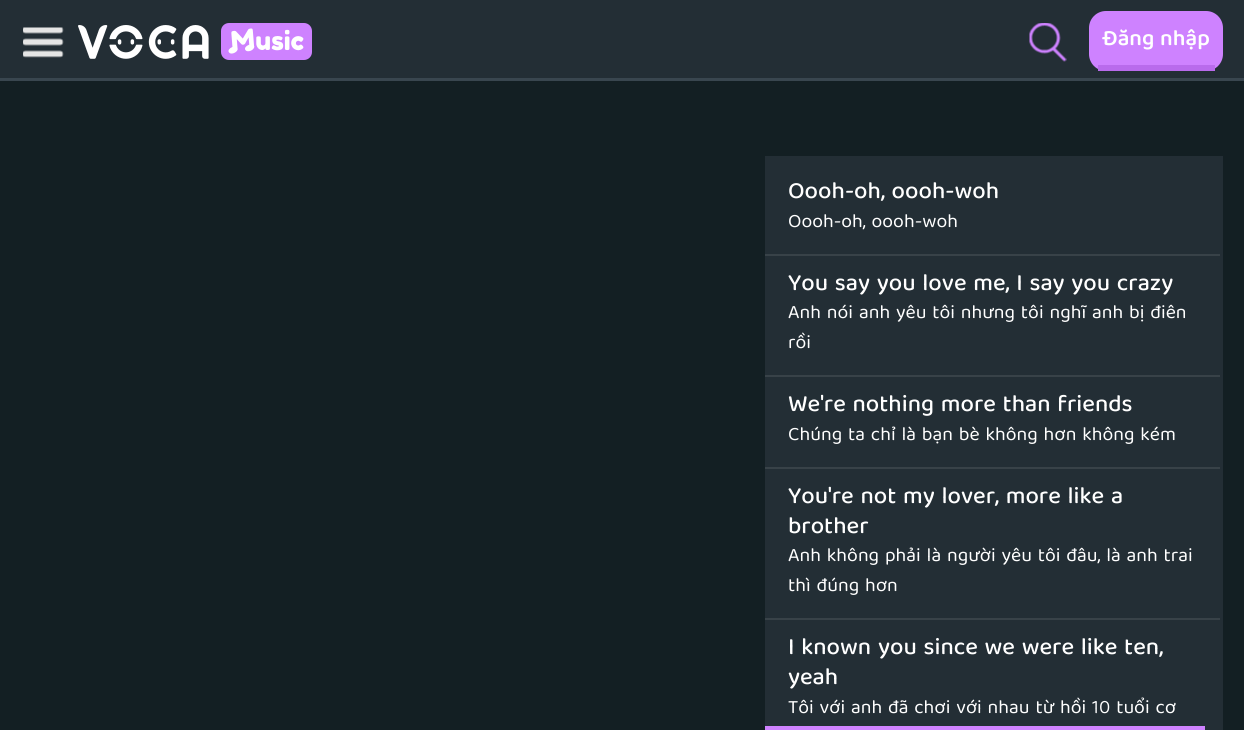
import math
import cairo

surface = cairo.ImageSurface(cairo.FORMAT_RGB24, 1244, 730)
ctx = cairo.Context(surface)
options = cairo.FontOptions()
options.set_hint_metrics(cairo.HINT_METRICS_OFF)
options.set_hint_style(cairo.HINT_STYLE_NONE)
ctx.set_font_options(options)
ctx.set_miter_limit(4)


def round_rect(x, y, w, h, r):
    ctx.new_sub_path()
    for i, (u, v) in enumerate([(x + w - r, y + h - r), (x + r, y + h - r), (x + r, y + r), (x + w - r, y + r)]):
        ctx.arc(u, v, r, i * math.pi / 2, (i + 1) * math.pi / 2)
    ctx.close_path()


def picture(path, x, y, w, h):
    ctx.save()
    ctx.set_source_surface(cairo.ImageSurface.create_from_png(path), x, y)
    ctx.rectangle(x, y, w, h)
    ctx.fill()
    ctx.restore()


ctx.set_source_rgb(0.078, 0.122, 0.137)
ctx.paint()
ctx.set_source_rgb(0.137, 0.18, 0.208)
ctx.rectangle(0, 0, 1244, 78)
ctx.fill()
ctx.set_source_rgb(0.224, 0.275, 0.31)
ctx.rectangle(0, 78, 1244, 3)
ctx.fill()
picture("img1.png", 23, 27, 41, 31)
picture("img2.png", 78, 23, 234, 37)
picture("img3.png", 1029, 23, 38, 39)
ctx.set_source_rgb(0.808, 0.51, 1)
round_rect(1089, 11, 134, 60, 17)
ctx.fill()
ctx.set_source_rgb(0.725, 0.42, 0.922)
ctx.rectangle(1098, 65, 117, 6)
ctx.fill()
ctx.select_font_face("Baloo Tamma 2 SemiBold")
ctx.set_font_size(22.5)
ctx.set_source_rgb(1, 1, 1)
ctx.move_to(1102, 45)
ctx.show_text("Đăng nhập")
ctx.set_source_rgb(0.137, 0.18, 0.208)
ctx.rectangle(765, 156, 458, 574)
ctx.fill()
ctx.set_source_rgb(0.22, 0.259, 0.282)
ctx.rectangle(765, 254, 455, 2)
ctx.fill()
ctx.select_font_face("Baloo Tamma 2 Medium")
ctx.set_font_size(24)
ctx.set_source_rgb(1, 1, 1)
ctx.move_to(788, 198)
ctx.show_text("Oooh-oh, oooh-woh")
ctx.select_font_face("Baloo Tamma 2")
ctx.set_font_size(19.5)
ctx.move_to(788, 227)
ctx.show_text("Oooh-oh, oooh-woh")
ctx.set_source_rgb(0.22, 0.259, 0.282)
ctx.rectangle(765, 375, 455, 2)
ctx.fill()
ctx.select_font_face("Baloo Tamma 2 Medium")
ctx.set_font_size(24)
ctx.set_source_rgb(1, 1, 1)
ctx.move_to(788, 290)
ctx.show_text("You say you love me, I say you crazy")
ctx.select_font_face("Baloo Tamma 2")
ctx.set_font_size(19.5)
ctx.move_to(788, 318)
ctx.show_text("Anh nói anh yêu tôi nhưng tôi nghĩ anh bị điên")
ctx.move_to(788, 348)
ctx.show_text("rồi")
ctx.set_source_rgb(0.22, 0.259, 0.282)
ctx.rectangle(765, 467, 455, 2)
ctx.fill()
ctx.select_font_face("Baloo Tamma 2 Medium")
ctx.set_font_size(24)
ctx.set_source_rgb(1, 1, 1)
ctx.move_to(788, 411)
ctx.show_text("We're nothing more than friends")
ctx.select_font_face("Baloo Tamma 2")
ctx.set_font_size(19.5)
ctx.move_to(788, 440)
ctx.show_text("Chúng ta chỉ là bạn bè không hơn không kém")
ctx.set_source_rgb(0.22, 0.259, 0.282)
ctx.rectangle(765, 618, 455, 2)
ctx.fill()
ctx.select_font_face("Baloo Tamma 2 Medium")
ctx.set_font_size(24)
ctx.set_source_rgb(1, 1, 1)
ctx.move_to(788, 503)
ctx.show_text("You're not my lover, more like a")
ctx.move_to(788, 533)
ctx.show_text("brother")
ctx.select_font_face("Baloo Tamma 2")
ctx.set_font_size(19.5)
ctx.move_to(788, 561)
ctx.show_text("Anh không phải là người yêu tôi đâu, là anh trai")
ctx.move_to(788, 591)
ctx.show_text("thì đúng hơn")
ctx.select_font_face("Baloo Tamma 2 Medium")
ctx.set_font_size(24)
ctx.move_to(788, 654)
ctx.show_text("I known you since we were like ten,")
ctx.move_to(788, 684)
ctx.show_text("yeah")
ctx.select_font_face("Baloo Tamma 2")
ctx.set_font_size(19.5)
ctx.move_to(788, 713)
ctx.show_text("Tôi với anh đã chơi với nhau từ hồi 10 tuổi cơ")
ctx.set_source_rgb(0.808, 0.51, 1)
ctx.rectangle(765, 726, 440, 4)
ctx.fill()
surface.write_to_png("page.png")
